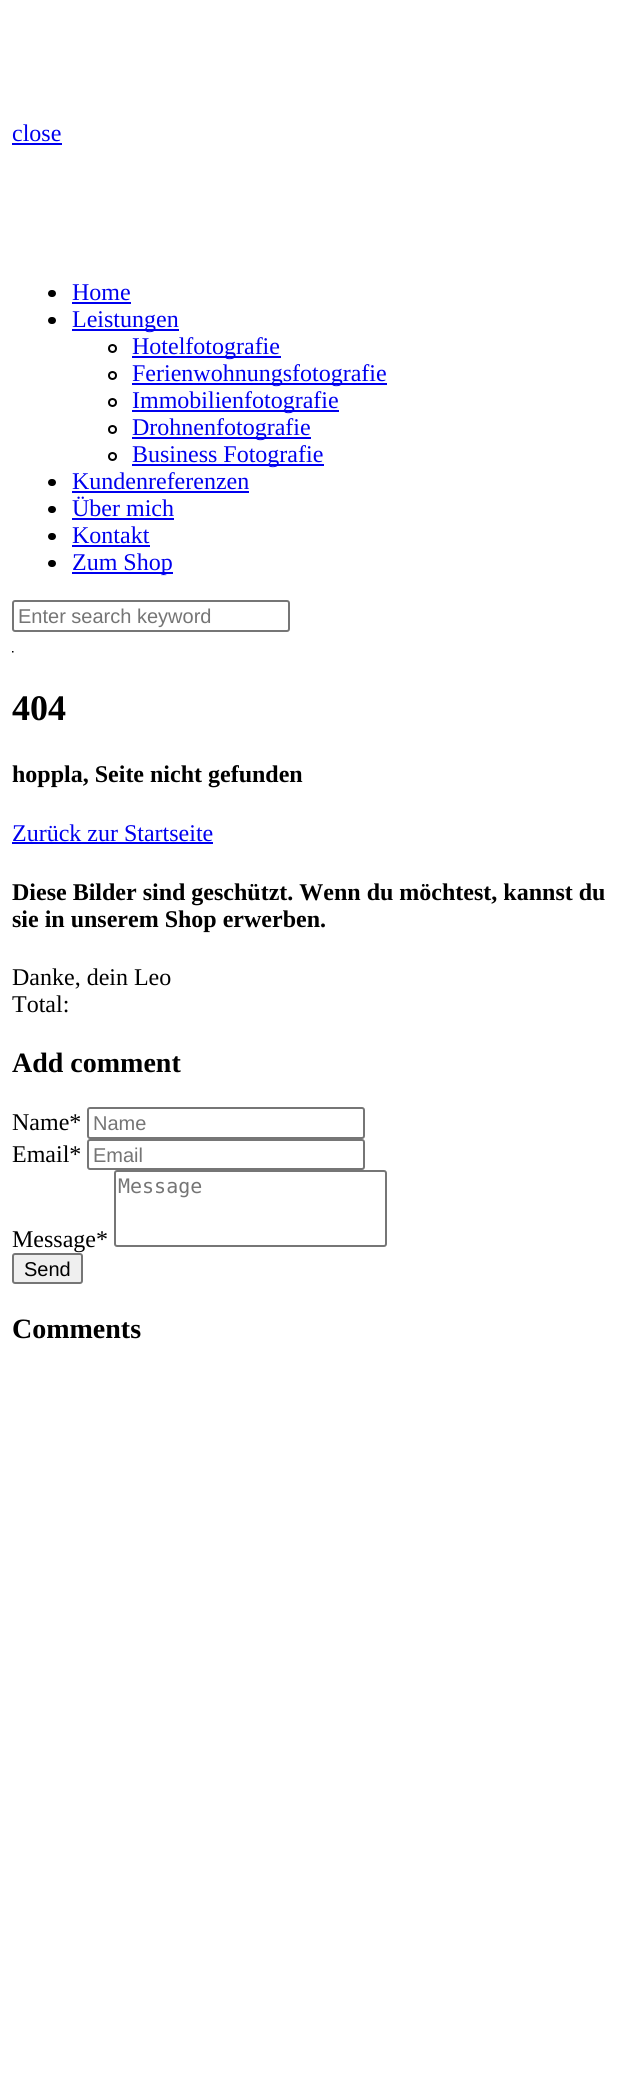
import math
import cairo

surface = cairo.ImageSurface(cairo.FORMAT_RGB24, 640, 2079)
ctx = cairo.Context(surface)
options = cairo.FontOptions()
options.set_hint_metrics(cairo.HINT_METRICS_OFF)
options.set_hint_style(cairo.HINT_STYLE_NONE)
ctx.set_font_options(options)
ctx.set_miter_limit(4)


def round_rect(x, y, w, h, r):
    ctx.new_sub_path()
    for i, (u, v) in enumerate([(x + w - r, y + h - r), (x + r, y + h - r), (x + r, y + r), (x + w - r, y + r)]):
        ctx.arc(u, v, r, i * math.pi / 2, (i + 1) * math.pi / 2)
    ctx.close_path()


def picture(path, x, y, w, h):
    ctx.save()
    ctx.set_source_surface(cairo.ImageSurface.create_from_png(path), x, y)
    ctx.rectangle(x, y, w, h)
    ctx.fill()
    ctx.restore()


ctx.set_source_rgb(1, 1, 1)
ctx.paint()
ctx.select_font_face("Liberation Serif")
ctx.set_font_size(24)
ctx.set_source_rgb(0, 0, 0.933)
ctx.move_to(12, 141)
ctx.show_text("close")
ctx.rectangle(12, 143, 50, 2)
ctx.fill()
ctx.set_source_rgb(0, 0, 0)
round_rect(48, 290, 8, 7, 3.5)
ctx.fill()
ctx.set_source_rgb(0, 0, 0.933)
ctx.move_to(72, 300)
ctx.show_text("Home")
ctx.rectangle(72, 302, 59, 2)
ctx.fill()
ctx.set_source_rgb(0, 0, 0)
round_rect(48, 317, 8, 7, 3.5)
ctx.fill()
ctx.set_source_rgb(0, 0, 0.933)
ctx.rectangle(72, 329, 107, 2)
ctx.fill()
ctx.move_to(72, 327)
ctx.show_text("Leistungen")
ctx.new_path()
ctx.arc(112.5, 348.5, 3.5, 0, 2 * math.pi)
ctx.set_source_rgb(0, 0, 0)
ctx.stroke()
ctx.set_source_rgb(0, 0, 0.933)
ctx.rectangle(132, 356, 149, 2)
ctx.fill()
ctx.move_to(132, 354)
ctx.show_text("Hotelfotografie")
ctx.new_path()
ctx.arc(112.5, 375.5, 3.5, 0, 2 * math.pi)
ctx.set_source_rgb(0, 0, 0)
ctx.stroke()
ctx.set_source_rgb(0, 0, 0.933)
ctx.rectangle(132, 383, 255, 2)
ctx.fill()
ctx.move_to(132, 381)
ctx.show_text("Ferienwohnungsfotografie")
ctx.new_path()
ctx.arc(112.5, 402.5, 3.5, 0, 2 * math.pi)
ctx.set_source_rgb(0, 0, 0)
ctx.stroke()
ctx.set_source_rgb(0, 0, 0.933)
ctx.rectangle(132, 410, 207, 2)
ctx.fill()
ctx.move_to(132, 408)
ctx.show_text("Immobilienfotografie")
ctx.new_path()
ctx.arc(112.5, 429.5, 3.5, 0, 2 * math.pi)
ctx.set_source_rgb(0, 0, 0)
ctx.stroke()
ctx.set_source_rgb(0, 0, 0.933)
ctx.rectangle(132, 437, 179, 2)
ctx.fill()
ctx.move_to(132, 435)
ctx.show_text("Drohnenfotografie")
ctx.new_path()
ctx.arc(112.5, 456.5, 3.5, 0, 2 * math.pi)
ctx.set_source_rgb(0, 0, 0)
ctx.stroke()
ctx.set_source_rgb(0, 0, 0.933)
ctx.rectangle(132, 464, 192, 2)
ctx.fill()
ctx.move_to(132, 462)
ctx.show_text("Business Fotografie")
ctx.set_source_rgb(0, 0, 0)
round_rect(48, 479, 8, 7, 3.5)
ctx.fill()
ctx.set_source_rgb(0, 0, 0.933)
ctx.move_to(72, 489)
ctx.show_text("Kundenreferenzen")
ctx.rectangle(72, 491, 177, 2)
ctx.fill()
ctx.set_source_rgb(0, 0, 0)
round_rect(48, 506, 8, 7, 3.5)
ctx.fill()
ctx.set_source_rgb(0, 0, 0.933)
ctx.move_to(72, 516)
ctx.show_text("Über mich")
ctx.rectangle(72, 518, 102, 2)
ctx.fill()
ctx.set_source_rgb(0, 0, 0)
round_rect(48, 533, 8, 7, 3.5)
ctx.fill()
ctx.set_source_rgb(0, 0, 0.933)
ctx.move_to(72, 543)
ctx.show_text("Kontakt")
ctx.rectangle(72, 545, 78, 2)
ctx.fill()
ctx.set_source_rgb(0, 0, 0)
round_rect(48, 560, 8, 7, 3.5)
ctx.fill()
ctx.set_source_rgb(0, 0, 0.933)
ctx.rectangle(72, 572, 101, 2)
ctx.fill()
ctx.move_to(72, 570)
ctx.show_text("Zum Shop")
round_rect(13, 601, 276, 30, 2)
ctx.set_source_rgb(0.463, 0.463, 0.463)
ctx.stroke()
ctx.select_font_face("Liberation Sans")
ctx.set_font_size(20)
ctx.set_source_rgb(0.459, 0.459, 0.459)
ctx.move_to(18, 623)
ctx.show_text("Enter search keyword")
picture("img1.png", 12, 651, 2, 2)
ctx.select_font_face("Liberation Serif", cairo.FONT_SLANT_NORMAL, cairo.FONT_WEIGHT_BOLD)
ctx.set_font_size(36)
ctx.set_source_rgb(0, 0, 0)
ctx.move_to(12, 720)
ctx.show_text("404")
ctx.set_font_size(24)
ctx.move_to(12, 782)
ctx.show_text("hoppla, Seite nicht gefunden")
ctx.select_font_face("Liberation Serif")
ctx.set_source_rgb(0, 0, 0.933)
ctx.move_to(12, 841)
ctx.show_text("Zurück zur Startseite")
ctx.rectangle(12, 842, 201, 2)
ctx.fill()
ctx.select_font_face("Liberation Serif", cairo.FONT_SLANT_NORMAL, cairo.FONT_WEIGHT_BOLD)
ctx.set_source_rgb(0, 0, 0)
ctx.move_to(12, 900)
ctx.show_text("Diese Bilder sind geschützt. Wenn du möchtest, kannst du")
ctx.move_to(12, 927)
ctx.show_text("sie in unserem Shop erwerben.")
ctx.select_font_face("Liberation Serif")
ctx.move_to(12, 985)
ctx.show_text("Danke, dein Leo")
ctx.move_to(12, 1012)
ctx.show_text("Total:")
ctx.select_font_face("Liberation Serif", cairo.FONT_SLANT_NORMAL, cairo.FONT_WEIGHT_BOLD)
ctx.set_font_size(28)
ctx.move_to(12, 1072)
ctx.show_text("Add comment")
ctx.select_font_face("Liberation Serif")
ctx.set_font_size(24)
ctx.move_to(12, 1130)
ctx.show_text("Name*")
round_rect(88, 1108, 276, 30, 2)
ctx.set_source_rgb(0.463, 0.463, 0.463)
ctx.stroke()
ctx.select_font_face("Liberation Sans")
ctx.set_font_size(20)
ctx.set_source_rgb(0.459, 0.459, 0.459)
ctx.move_to(93, 1130)
ctx.show_text("Name")
ctx.select_font_face("Liberation Serif")
ctx.set_font_size(24)
ctx.set_source_rgb(0, 0, 0)
ctx.move_to(12, 1162)
ctx.show_text("Email*")
round_rect(88, 1140, 276, 29, 2)
ctx.set_source_rgb(0.463, 0.463, 0.463)
ctx.stroke()
ctx.select_font_face("Liberation Sans")
ctx.set_font_size(20)
ctx.set_source_rgb(0.459, 0.459, 0.459)
ctx.move_to(93, 1162)
ctx.show_text("Email")
round_rect(115, 1171, 271, 75, 2)
ctx.set_source_rgb(0.463, 0.463, 0.463)
ctx.stroke()
ctx.select_font_face("DejaVu Sans Mono")
ctx.set_source_rgb(0.459, 0.459, 0.459)
ctx.move_to(118, 1193)
ctx.show_text("Message")
ctx.select_font_face("Liberation Serif")
ctx.set_font_size(24)
ctx.set_source_rgb(0, 0, 0)
ctx.move_to(12, 1247)
ctx.show_text("Message*")
ctx.set_source_rgb(0.937, 0.937, 0.937)
round_rect(13, 1254, 69, 29, 2)
ctx.fill_preserve()
ctx.set_source_rgb(0.463, 0.463, 0.463)
ctx.stroke()
ctx.select_font_face("Liberation Sans")
ctx.set_font_size(20)
ctx.set_source_rgb(0, 0, 0)
ctx.move_to(24, 1276)
ctx.show_text("Send")
ctx.select_font_face("Liberation Serif", cairo.FONT_SLANT_NORMAL, cairo.FONT_WEIGHT_BOLD)
ctx.set_font_size(28)
ctx.move_to(12, 1338)
ctx.show_text("Comments")
surface.write_to_png("page.png")
